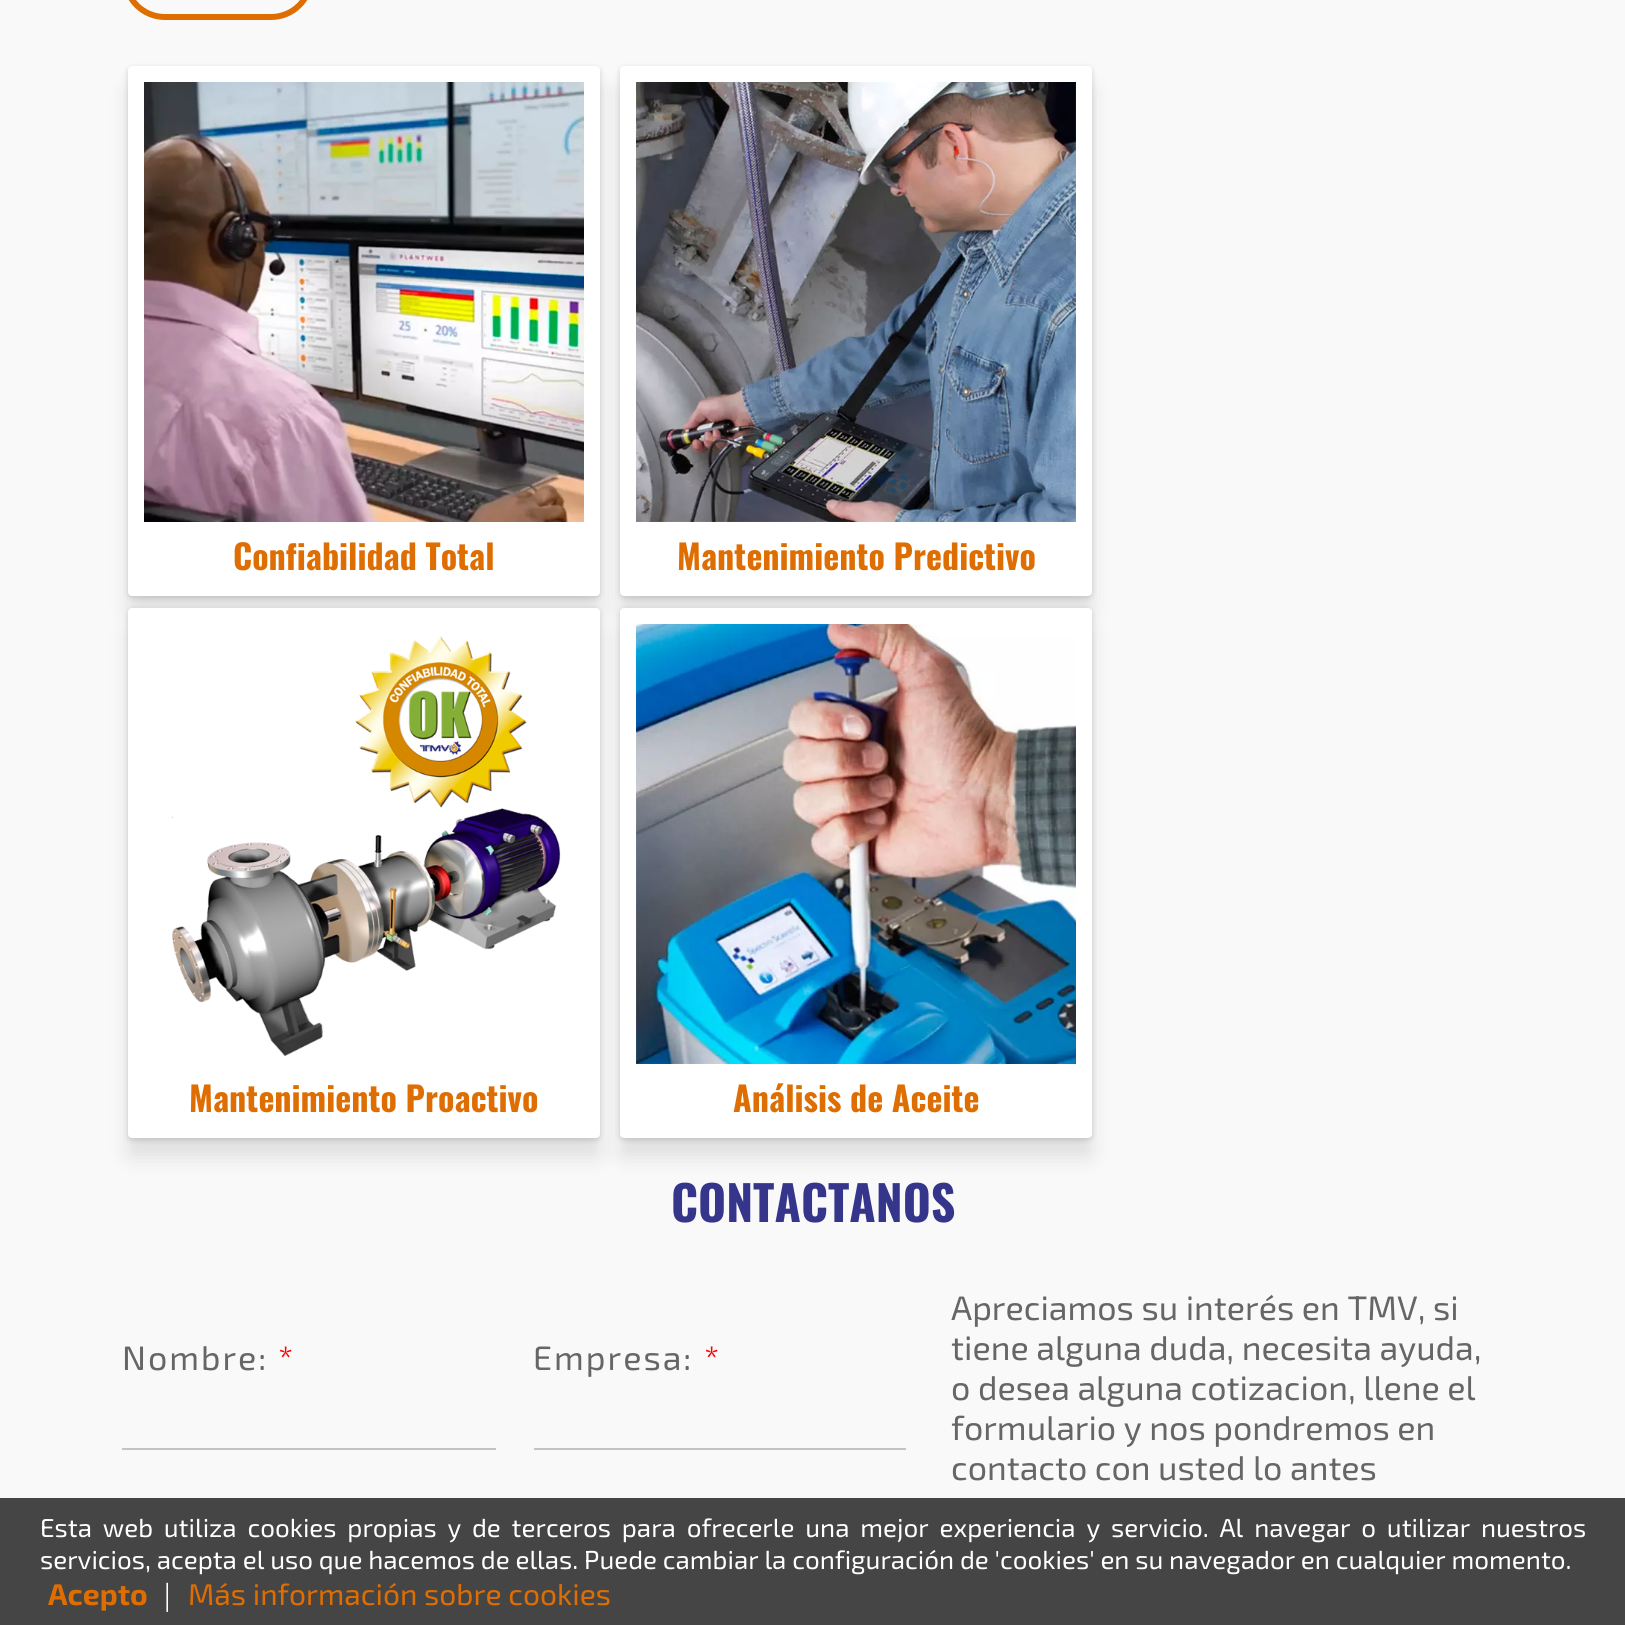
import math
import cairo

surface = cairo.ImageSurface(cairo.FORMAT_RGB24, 1625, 1625)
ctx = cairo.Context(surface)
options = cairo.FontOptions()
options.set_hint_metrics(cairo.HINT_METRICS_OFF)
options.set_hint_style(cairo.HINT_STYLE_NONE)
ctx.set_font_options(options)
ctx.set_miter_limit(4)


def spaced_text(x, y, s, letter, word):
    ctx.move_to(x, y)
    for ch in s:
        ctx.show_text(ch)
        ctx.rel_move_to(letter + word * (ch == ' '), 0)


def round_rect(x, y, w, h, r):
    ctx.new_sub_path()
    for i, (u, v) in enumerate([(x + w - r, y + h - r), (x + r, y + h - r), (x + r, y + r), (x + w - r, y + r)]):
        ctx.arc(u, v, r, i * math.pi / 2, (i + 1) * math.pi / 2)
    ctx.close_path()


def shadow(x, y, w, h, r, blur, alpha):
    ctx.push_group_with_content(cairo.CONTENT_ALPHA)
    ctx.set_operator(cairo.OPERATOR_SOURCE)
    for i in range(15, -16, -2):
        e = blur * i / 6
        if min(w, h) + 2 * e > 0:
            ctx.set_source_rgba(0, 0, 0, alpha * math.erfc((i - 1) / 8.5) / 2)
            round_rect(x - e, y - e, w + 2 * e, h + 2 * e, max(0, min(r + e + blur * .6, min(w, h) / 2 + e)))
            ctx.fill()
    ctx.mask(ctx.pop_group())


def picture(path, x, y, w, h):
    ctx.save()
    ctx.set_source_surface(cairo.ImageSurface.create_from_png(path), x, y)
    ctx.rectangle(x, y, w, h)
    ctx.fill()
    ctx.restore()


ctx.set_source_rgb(0.973, 0.973, 0.973)
ctx.paint()
round_rect(125, -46, 186, 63, 40)
ctx.set_source_rgb(0.871, 0.427, 0.008)
ctx.set_line_width(6)
ctx.stroke()
ctx.set_source_rgb(0, 0, 0)
shadow(128, 86, 472, 530, 4, 10, 0.1)
shadow(128, 68, 472, 530, 4, 3, 0.15)
ctx.set_source_rgb(1, 1, 1)
round_rect(128, 66, 472, 530, 4)
ctx.fill()
picture("img1.png", 144, 82, 440, 440)
ctx.select_font_face("Oswald", cairo.FONT_SLANT_NORMAL, cairo.FONT_WEIGHT_BOLD)
ctx.set_font_size(34)
ctx.set_source_rgb(0.871, 0.427, 0.008)
ctx.move_to(233, 570)
ctx.show_text("Confiabilidad Total")
ctx.set_source_rgb(0, 0, 0)
shadow(620, 86, 472, 530, 4, 10, 0.1)
shadow(620, 68, 472, 530, 4, 3, 0.15)
ctx.set_source_rgb(1, 1, 1)
round_rect(620, 66, 472, 530, 4)
ctx.fill()
picture("img2.png", 636, 82, 440, 440)
ctx.set_source_rgb(0.871, 0.427, 0.008)
ctx.move_to(677, 570)
ctx.show_text("Mantenimiento Predictivo")
ctx.set_source_rgb(0, 0, 0)
shadow(128, 628, 472, 530, 4, 10, 0.1)
shadow(128, 610, 472, 530, 4, 3, 0.15)
ctx.set_source_rgb(1, 1, 1)
round_rect(128, 608, 472, 530, 4)
ctx.fill()
picture("img3.png", 171, 636, 390, 420)
ctx.set_source_rgb(0.871, 0.427, 0.008)
ctx.move_to(189, 1112)
ctx.show_text("Mantenimiento Proactivo")
ctx.set_source_rgb(0, 0, 0)
shadow(620, 628, 472, 530, 4, 10, 0.1)
shadow(620, 610, 472, 530, 4, 3, 0.15)
ctx.set_source_rgb(1, 1, 1)
round_rect(620, 608, 472, 530, 4)
ctx.fill()
picture("img4.png", 636, 624, 440, 440)
ctx.set_source_rgb(0.871, 0.427, 0.008)
ctx.move_to(733, 1112)
ctx.show_text("Análisis de Aceite")
ctx.set_font_size(48)
ctx.set_source_rgb(0.208, 0.208, 0.545)
ctx.move_to(671, 1222)
ctx.show_text("CONTACTANOS")
ctx.select_font_face("Exo 2")
ctx.set_font_size(34)
ctx.set_source_rgb(0.4, 0.4, 0.4)
spaced_text(122, 1370, "Nombre:", 2, 0)
ctx.set_source_rgb(1, 0, 0)
spaced_text(278, 1370, "*", 2, 0)
ctx.set_source_rgb(0.761, 0.765, 0.769)
ctx.rectangle(122, 1448, 374, 2)
ctx.fill()
ctx.set_source_rgb(0.4, 0.4, 0.4)
spaced_text(533, 1370, "Empresa:", 2, 0)
ctx.set_source_rgb(1, 0, 0)
spaced_text(704, 1370, "*", 2, 0)
ctx.set_source_rgb(0.761, 0.765, 0.769)
ctx.rectangle(534, 1448, 372, 2)
ctx.fill()
ctx.set_source_rgb(0.4, 0.4, 0.4)
ctx.move_to(951, 1320)
ctx.show_text("Apreciamos su interés en TMV, si")
ctx.move_to(951, 1360)
ctx.show_text("tiene alguna duda, necesita ayuda,")
ctx.move_to(951, 1400)
ctx.show_text("o desea alguna cotizacion, llene el")
ctx.move_to(951, 1440)
ctx.show_text("formulario y nos pondremos en")
ctx.move_to(951, 1480)
ctx.show_text("contacto con usted lo antes")
ctx.set_source_rgb(0.271, 0.271, 0.271)
ctx.rectangle(0, 1498, 1625, 127)
ctx.fill()
ctx.set_font_size(26)
ctx.set_source_rgb(1, 1, 1)
spaced_text(40, 1537, "Esta web utiliza cookies propias y de terceros para ofrecerle una mejor experiencia y servicio. Al navegar o utilizar nuestros", 0, 5)
ctx.move_to(40, 1569)
ctx.show_text("servicios, acepta el uso que hacemos de ellas. Puede cambiar la configuración de 'cookies' en su navegador en cualquier momento.")
ctx.select_font_face("Exo 2", cairo.FONT_SLANT_NORMAL, cairo.FONT_WEIGHT_BOLD)
ctx.set_font_size(30)
ctx.set_source_rgb(0.871, 0.427, 0.008)
ctx.move_to(48, 1605)
ctx.show_text("Acepto")
ctx.select_font_face("Liberation Serif")
ctx.set_font_size(32)
ctx.set_source_rgb(1, 1, 1)
ctx.move_to(164, 1605)
ctx.show_text("|")
ctx.select_font_face("Exo 2")
ctx.set_font_size(30)
ctx.set_source_rgb(0.871, 0.427, 0.008)
ctx.move_to(188, 1605)
ctx.show_text("Más información sobre cookies")
surface.write_to_png("page.png")
